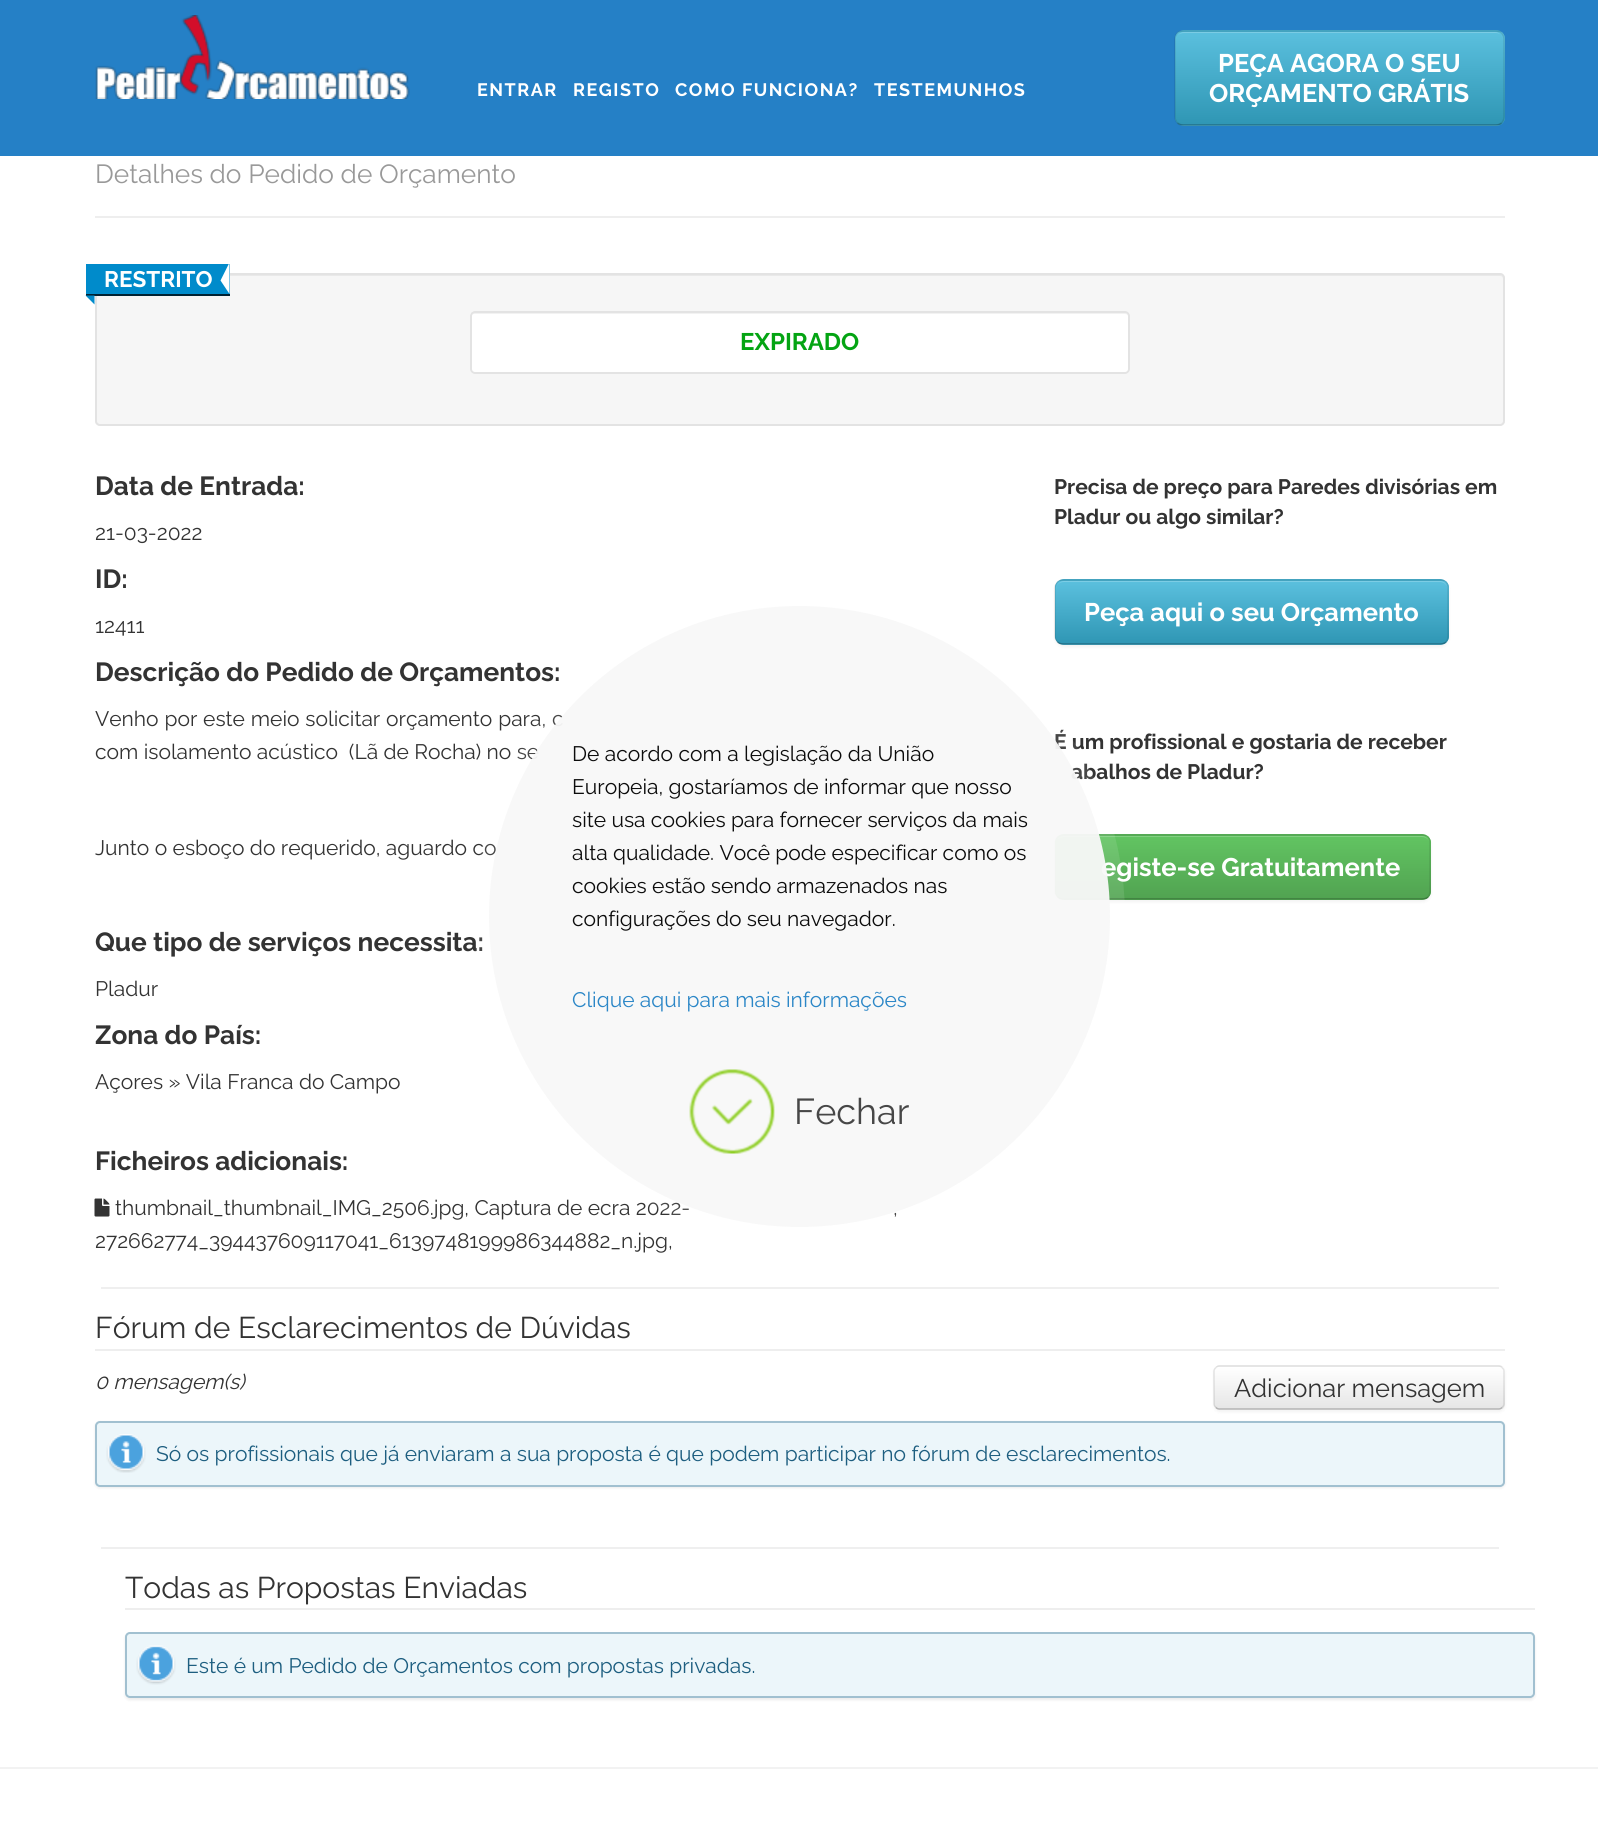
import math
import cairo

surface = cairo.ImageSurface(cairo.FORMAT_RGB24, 1598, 1833)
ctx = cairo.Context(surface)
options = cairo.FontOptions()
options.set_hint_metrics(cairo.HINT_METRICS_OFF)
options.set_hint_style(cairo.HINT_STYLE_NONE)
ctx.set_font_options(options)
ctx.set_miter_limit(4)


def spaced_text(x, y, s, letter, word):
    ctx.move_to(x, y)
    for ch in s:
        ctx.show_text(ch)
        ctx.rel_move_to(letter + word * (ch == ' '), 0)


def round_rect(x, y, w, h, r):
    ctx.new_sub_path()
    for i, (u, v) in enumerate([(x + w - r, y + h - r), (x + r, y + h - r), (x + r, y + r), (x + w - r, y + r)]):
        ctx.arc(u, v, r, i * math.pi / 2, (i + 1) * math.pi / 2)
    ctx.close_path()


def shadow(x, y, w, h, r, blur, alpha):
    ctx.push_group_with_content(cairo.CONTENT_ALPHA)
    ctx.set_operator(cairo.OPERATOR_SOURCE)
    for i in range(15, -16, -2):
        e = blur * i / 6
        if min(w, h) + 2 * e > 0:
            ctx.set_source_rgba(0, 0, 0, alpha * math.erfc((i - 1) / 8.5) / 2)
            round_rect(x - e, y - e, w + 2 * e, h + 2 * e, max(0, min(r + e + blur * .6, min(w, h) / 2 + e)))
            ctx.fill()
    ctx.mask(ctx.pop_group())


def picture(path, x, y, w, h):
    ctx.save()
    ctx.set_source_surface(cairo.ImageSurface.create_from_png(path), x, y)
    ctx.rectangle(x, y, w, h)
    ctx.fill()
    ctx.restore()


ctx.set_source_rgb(1, 1, 1)
ctx.paint()
ctx.set_source_rgb(0.145, 0.502, 0.776)
ctx.rectangle(0, 0, 1598, 156)
ctx.fill()
picture("img1.png", 95, 15, 315, 84)
ctx.select_font_face("Raleway", cairo.FONT_SLANT_NORMAL, cairo.FONT_WEIGHT_BOLD)
ctx.set_font_size(18)
ctx.set_source_rgb(1, 1, 1)
spaced_text(477, 96, "ENTRAR", 1.5, 0)
spaced_text(573, 96, "REGISTO", 1.5, 0)
spaced_text(675, 96, "COMO FUNCIONA?", 1.5, 0)
spaced_text(874, 96, "TESTEMUNHOS", 1.5, 0)
ctx.set_source_rgb(0.286, 0.686, 0.804)
round_rect(1175, 30, 330, 96, 9)
ctx.fill()
ctx.save()
round_rect(1175, 30, 330, 96, 9)
ctx.clip()
gradient = cairo.LinearGradient(1340, 31, 1340, 125)
gradient.add_color_stop_rgba(0, 0.357, 0.753, 0.871, 1)
gradient.add_color_stop_rgba(1, 0.184, 0.588, 0.706, 1)
ctx.set_source(gradient)
ctx.rectangle(1175, 32, 330, 93)
ctx.fill()
ctx.restore()
ctx.set_source_rgb(0.482, 0.8, 0.894)
ctx.new_path()
ctx.move_to(1184, 33)
ctx.line_to(1496, 33)
ctx.curve_to(1500, 33, 1503, 36, 1503, 40)
ctx.curve_to(1503, 36, 1499, 32, 1495, 32)
ctx.line_to(1184, 32)
ctx.curve_to(1180, 32, 1176, 36, 1176, 40)
ctx.curve_to(1176, 36, 1179, 33, 1184, 33)
ctx.close_path()
ctx.fill()
ctx.new_path()
ctx.move_to(1501.5, 123)
ctx.curve_to(1500, 124.5, 1497.5, 125, 1495.5, 125)
ctx.line_to(1183.5, 125)
ctx.curve_to(1181.5, 125, 1179, 124.5, 1177.5, 123)
ctx.set_source_rgba(0, 0, 0, 0.25)
ctx.set_line_width(1.5)
ctx.stroke()
ctx.new_path()
ctx.move_to(1177.5, 123)
ctx.curve_to(1176, 121.5, 1175, 119, 1175, 117)
ctx.line_to(1175, 39)
ctx.curve_to(1175, 37, 1176, 34.5, 1177.5, 33)
ctx.curve_to(1179, 31.5, 1181.5, 31, 1183.5, 31)
ctx.line_to(1495.5, 31)
ctx.curve_to(1497.5, 31, 1500, 31.5, 1501.5, 33)
ctx.curve_to(1503, 34.5, 1504, 37, 1504, 39)
ctx.line_to(1504, 117)
ctx.curve_to(1504, 119, 1503, 121.5, 1501.5, 123)
ctx.set_source_rgba(0, 0, 0, 0.1)
ctx.stroke()
ctx.set_font_size(25.5)
ctx.set_source_rgb(1, 1, 1)
ctx.move_to(1218, 72)
ctx.show_text("PEÇA AGORA O SEU")
ctx.move_to(1209, 102)
ctx.show_text("ORÇAMENTO GRÁTIS")
ctx.set_source_rgb(0.933, 0.933, 0.933)
ctx.rectangle(95, 216, 1410, 2)
ctx.fill()
ctx.select_font_face("Raleway")
ctx.set_font_size(26.25)
ctx.set_source_rgb(0.6, 0.6, 0.6)
ctx.move_to(95, 183)
ctx.show_text("Detalhes do Pedido de Orçamento")
ctx.set_source_rgb(0.961, 0.961, 0.961)
round_rect(95, 273, 1410, 153, 5)
ctx.fill()
ctx.set_source_rgb(0.914, 0.914, 0.914)
ctx.new_path()
ctx.move_to(99, 276)
ctx.line_to(1500, 276)
ctx.curve_to(1502, 276, 1503, 277, 1503, 279)
ctx.line_to(1503, 278)
ctx.curve_to(1503, 276, 1502, 275, 1500, 275)
ctx.line_to(99, 275)
ctx.curve_to(97, 275, 96, 276, 96, 278)
ctx.line_to(96, 279)
ctx.curve_to(96, 277, 97, 276, 99, 276)
ctx.close_path()
ctx.fill()
round_rect(96, 274, 1408, 151, 4)
ctx.set_source_rgb(0.89, 0.89, 0.89)
ctx.set_line_width(2)
ctx.stroke()
ctx.set_source_rgb(0, 0.133, 0.196)
ctx.new_path()
ctx.move_to(86, 294)
ctx.line_to(86, 296)
ctx.line_to(230, 296)
ctx.line_to(230, 266)
ctx.line_to(230, 294)
ctx.close_path()
ctx.fill()
ctx.set_source_rgb(0, 0.545, 0.796)
ctx.rectangle(86, 264, 144, 30)
ctx.fill()
ctx.select_font_face("Raleway", cairo.FONT_SLANT_NORMAL, cairo.FONT_WEIGHT_BOLD)
ctx.set_font_size(22.5)
ctx.set_source_rgb(1, 1, 1)
ctx.move_to(104, 287)
ctx.show_text("RESTRITO")
ctx.new_path()
ctx.move_to(229.5, 262.5)
ctx.line_to(229.5, 294)
ctx.line_to(220.5, 280.5)
ctx.close_path()
ctx.fill()
ctx.set_source_rgb(0, 0.545, 0.796)
ctx.new_path()
ctx.move_to(85.5, 295.5)
ctx.line_to(94.5, 295.5)
ctx.line_to(94.5, 304.5)
ctx.close_path()
ctx.fill()
ctx.set_source_rgb(1, 1, 1)
round_rect(470, 311, 660, 63, 5)
ctx.fill()
ctx.set_source_rgb(0.949, 0.949, 0.949)
ctx.new_path()
ctx.move_to(474, 314)
ctx.line_to(1125, 314)
ctx.curve_to(1127, 314, 1128, 315, 1128, 316)
ctx.line_to(1128, 315)
ctx.curve_to(1128, 313, 1127, 312, 1125, 312)
ctx.line_to(474, 312)
ctx.curve_to(472, 312, 471, 313, 471, 315)
ctx.line_to(471, 316)
ctx.curve_to(471, 315, 472, 314, 474, 314)
ctx.close_path()
ctx.fill()
round_rect(471, 312, 658, 61, 4)
ctx.set_source_rgb(0.89, 0.89, 0.89)
ctx.stroke()
ctx.set_font_size(24)
ctx.set_source_rgb(0.016, 0.643, 0.078)
ctx.move_to(740, 350)
ctx.show_text("EXPIRADO")
ctx.set_font_size(26.25)
ctx.set_source_rgb(0.2, 0.2, 0.2)
ctx.move_to(95, 495)
ctx.show_text("Data de Entrada:")
ctx.select_font_face("Raleway")
ctx.set_font_size(21)
ctx.move_to(95, 540)
ctx.show_text("21-03-2022")
ctx.select_font_face("Raleway", cairo.FONT_SLANT_NORMAL, cairo.FONT_WEIGHT_BOLD)
ctx.set_font_size(26.25)
ctx.move_to(95, 588)
ctx.show_text("ID:")
ctx.select_font_face("Raleway")
ctx.set_font_size(21)
ctx.move_to(95, 633)
ctx.show_text("12411")
ctx.select_font_face("Raleway", cairo.FONT_SLANT_NORMAL, cairo.FONT_WEIGHT_BOLD)
ctx.set_font_size(26.25)
ctx.move_to(95, 681)
ctx.show_text("Descrição do Pedido de Orçamentos:")
ctx.select_font_face("Raleway")
ctx.set_font_size(21)
spaced_text(95, 726, "Venho por este meio solicitar orçamento para, c", 0, 0.5)
ctx.move_to(95, 759)
ctx.show_text("com isolamento acústico  (Lã de Rocha) no se")
ctx.move_to(95, 855)
ctx.show_text("Junto o esboço do requerido, aguardo co")
ctx.select_font_face("Raleway", cairo.FONT_SLANT_NORMAL, cairo.FONT_WEIGHT_BOLD)
ctx.set_font_size(26.25)
ctx.move_to(95, 951)
ctx.show_text("Que tipo de serviços necessita:")
ctx.select_font_face("Raleway")
ctx.set_font_size(21)
ctx.move_to(95, 996)
ctx.show_text("Pladur")
ctx.select_font_face("Raleway", cairo.FONT_SLANT_NORMAL, cairo.FONT_WEIGHT_BOLD)
ctx.set_font_size(26.25)
ctx.move_to(95, 1044)
ctx.show_text("Zona do País:")
ctx.select_font_face("Raleway")
ctx.set_font_size(21)
ctx.move_to(95, 1089)
ctx.show_text("Açores » Vila Franca do Campo")
ctx.select_font_face("Raleway", cairo.FONT_SLANT_NORMAL, cairo.FONT_WEIGHT_BOLD)
ctx.set_font_size(26.25)
ctx.move_to(95, 1170)
ctx.show_text("Ficheiros adicionais:")
picture("img2.png", 94, 1198, 16, 19)
ctx.select_font_face("Raleway")
ctx.set_font_size(21)
ctx.move_to(115, 1215)
ctx.show_text("thumbnail_thumbnail_IMG_2506.jpg, Captura de ecra 2022-")
ctx.move_to(893, 1215)
ctx.show_text(",")
ctx.move_to(95, 1248)
ctx.show_text("272662774_394437609117041_6139748199986344882_n.jpg,")
ctx.select_font_face("Raleway", cairo.FONT_SLANT_NORMAL, cairo.FONT_WEIGHT_BOLD)
ctx.move_to(1054, 494)
ctx.show_text("Precisa de preço para Paredes divisórias em")
ctx.move_to(1054, 524)
ctx.show_text("Pladur ou algo similar?")
ctx.set_source_rgb(0, 0, 0)
shadow(1055, 581, 394, 66, 9, 1.5, 0.05)
ctx.set_source_rgb(0.286, 0.686, 0.804)
round_rect(1055, 579, 394, 66, 9)
ctx.fill()
ctx.save()
round_rect(1055, 579, 394, 66, 9)
ctx.clip()
gradient = cairo.LinearGradient(1252, 581, 1252, 644)
gradient.add_color_stop_rgba(0, 0.357, 0.753, 0.871, 1)
gradient.add_color_stop_rgba(1, 0.184, 0.588, 0.706, 1)
ctx.set_source(gradient)
ctx.rectangle(1055, 581, 394, 63)
ctx.fill()
ctx.restore()
ctx.set_source_rgb(0.486, 0.804, 0.898)
ctx.new_path()
ctx.move_to(1064, 582)
ctx.line_to(1440, 582)
ctx.curve_to(1444, 582, 1448, 585, 1448, 590)
ctx.line_to(1448, 589)
ctx.curve_to(1448, 585, 1444, 581, 1440, 581)
ctx.line_to(1064, 581)
ctx.curve_to(1060, 581, 1056, 585, 1056, 589)
ctx.line_to(1056, 590)
ctx.curve_to(1056, 585, 1059, 582, 1064, 582)
ctx.close_path()
ctx.fill()
ctx.new_path()
ctx.move_to(1446, 642)
ctx.curve_to(1444.5, 643.5, 1442, 644, 1440, 644)
ctx.line_to(1063.5, 644)
ctx.curve_to(1061.5, 644, 1059, 643.5, 1057.5, 642)
ctx.set_source_rgba(0, 0, 0, 0.25)
ctx.set_line_width(1.5)
ctx.stroke()
ctx.new_path()
ctx.move_to(1057.5, 642)
ctx.curve_to(1056, 640.5, 1055, 638, 1055, 636)
ctx.line_to(1055, 588)
ctx.curve_to(1055, 586, 1056, 583.5, 1057.5, 582)
ctx.curve_to(1059, 580.5, 1061.5, 580, 1063.5, 580)
ctx.line_to(1440, 580)
ctx.curve_to(1442, 580, 1444.5, 580.5, 1446, 582)
ctx.curve_to(1447.5, 583.5, 1448, 586, 1448, 588)
ctx.line_to(1448, 636)
ctx.curve_to(1448, 638, 1447.5, 640.5, 1446, 642)
ctx.set_source_rgba(0, 0, 0, 0.1)
ctx.stroke()
ctx.set_font_size(25.5)
ctx.set_source_rgb(1, 1, 1)
ctx.move_to(1084, 621)
ctx.show_text("Peça aqui o seu Orçamento")
ctx.set_font_size(21)
ctx.set_source_rgb(0.2, 0.2, 0.2)
ctx.move_to(1054, 749)
ctx.show_text("É um profissional e gostaria de receber")
ctx.move_to(1071, 779)
ctx.show_text("abalhos de Pladur?")
ctx.set_source_rgb(0, 0, 0)
shadow(1055, 836, 376, 66, 9, 1.5, 0.05)
ctx.set_source_rgb(0.357, 0.718, 0.357)
round_rect(1055, 834, 376, 66, 9)
ctx.fill()
ctx.save()
round_rect(1055, 834, 376, 66, 9)
ctx.clip()
gradient = cairo.LinearGradient(1243, 836, 1243, 899)
gradient.add_color_stop_rgba(0, 0.384, 0.769, 0.384, 1)
gradient.add_color_stop_rgba(1, 0.318, 0.639, 0.318, 1)
ctx.set_source(gradient)
ctx.rectangle(1055, 836, 376, 63)
ctx.fill()
ctx.restore()
ctx.set_source_rgb(0.506, 0.816, 0.506)
ctx.new_path()
ctx.move_to(1064, 837)
ctx.line_to(1422, 837)
ctx.curve_to(1426, 837, 1430, 840, 1430, 844)
ctx.curve_to(1430, 840, 1426, 836, 1422, 836)
ctx.line_to(1064, 836)
ctx.curve_to(1060, 836, 1056, 840, 1056, 844)
ctx.curve_to(1056, 840, 1059, 837, 1064, 837)
ctx.close_path()
ctx.fill()
ctx.new_path()
ctx.move_to(1428, 897)
ctx.curve_to(1426.5, 898.5, 1424, 899, 1422, 899)
ctx.line_to(1063.5, 899)
ctx.curve_to(1061.5, 899, 1059, 898.5, 1057.5, 897)
ctx.set_source_rgba(0, 0, 0, 0.25)
ctx.stroke()
ctx.new_path()
ctx.move_to(1057.5, 897)
ctx.curve_to(1056, 895.5, 1055, 893, 1055, 891)
ctx.line_to(1055, 843)
ctx.curve_to(1055, 841, 1056, 838.5, 1057.5, 837)
ctx.curve_to(1059, 835.5, 1061.5, 835, 1063.5, 835)
ctx.line_to(1422, 835)
ctx.curve_to(1424, 835, 1426.5, 835.5, 1428, 837)
ctx.curve_to(1429.5, 838.5, 1430, 841, 1430, 843)
ctx.line_to(1430, 891)
ctx.curve_to(1430, 893, 1429.5, 895.5, 1428, 897)
ctx.set_source_rgba(0, 0, 0, 0.1)
ctx.stroke()
ctx.set_font_size(25.5)
ctx.set_source_rgb(1, 1, 1)
ctx.move_to(1101, 876)
ctx.show_text("egiste-se Gratuitamente")
ctx.set_source_rgb(0.937, 0.937, 0.937)
ctx.rectangle(101, 1287, 1398, 2)
ctx.fill()
ctx.set_source_rgb(0.933, 0.933, 0.933)
ctx.rectangle(95, 1349, 1410, 2)
ctx.fill()
ctx.select_font_face("Raleway")
ctx.set_font_size(30)
ctx.set_source_rgb(0.2, 0.2, 0.2)
ctx.move_to(95, 1338)
ctx.show_text("Fórum de Esclarecimentos de Dúvidas")
ctx.select_font_face("Raleway", cairo.FONT_SLANT_ITALIC)
ctx.set_font_size(21)
ctx.move_to(95, 1389)
ctx.show_text("0 mensagem(s)")
ctx.set_source_rgb(0, 0, 0)
shadow(1214, 1367, 291, 45, 6, 1.5, 0.05)
ctx.set_source_rgb(0.961, 0.961, 0.961)
round_rect(1214, 1365, 291, 45, 6)
ctx.fill()
ctx.save()
round_rect(1214, 1365, 291, 45, 6)
ctx.clip()
gradient = cairo.LinearGradient(1359, 1367, 1359, 1409)
gradient.add_color_stop_rgba(0, 1, 1, 1, 1)
gradient.add_color_stop_rgba(1, 0.902, 0.902, 0.902, 1)
ctx.set_source(gradient)
ctx.rectangle(1214, 1367, 291, 42)
ctx.fill()
ctx.restore()
ctx.new_path()
ctx.move_to(1502, 1407.5)
ctx.curve_to(1501, 1408.5, 1500, 1409, 1498.5, 1409)
ctx.line_to(1219.5, 1409)
ctx.curve_to(1218, 1409, 1217, 1408.5, 1216, 1407.5)
ctx.set_source_rgb(0.702, 0.702, 0.702)
ctx.stroke()
ctx.new_path()
ctx.move_to(1216, 1407.5)
ctx.curve_to(1215, 1406.5, 1214, 1405.5, 1214, 1404)
ctx.line_to(1214, 1371)
ctx.curve_to(1214, 1369.5, 1215, 1368.5, 1216, 1367.5)
ctx.curve_to(1217, 1366.5, 1218, 1366, 1219.5, 1366)
ctx.line_to(1498.5, 1366)
ctx.curve_to(1500, 1366, 1501, 1366.5, 1502, 1367.5)
ctx.curve_to(1503, 1368.5, 1504, 1369.5, 1504, 1371)
ctx.line_to(1504, 1404)
ctx.curve_to(1504, 1405.5, 1503, 1406.5, 1502, 1407.5)
ctx.set_source_rgba(0, 0, 0, 0.1)
ctx.stroke()
ctx.select_font_face("Raleway")
ctx.set_font_size(25.5)
ctx.set_source_rgb(0.2, 0.2, 0.2)
ctx.move_to(1234, 1397)
ctx.show_text("Adicionar mensagem")
ctx.set_source_rgb(0, 0, 0)
shadow(95, 1422, 1410, 66, 5, 1.5, 0.08)
ctx.set_source_rgb(0.922, 0.961, 0.98)
round_rect(95, 1421, 1410, 66, 5)
ctx.fill()
picture("img3.png", 106, 1434, 40, 39)
round_rect(96, 1422, 1408, 64, 4)
ctx.set_source_rgb(0.631, 0.753, 0.816)
ctx.set_line_width(2)
ctx.stroke()
ctx.set_font_size(21)
ctx.set_source_rgb(0.114, 0.369, 0.502)
ctx.move_to(156, 1461)
ctx.show_text("Só os profissionais que já enviaram a sua proposta é que podem participar no fórum de esclarecimentos.")
ctx.set_source_rgb(0.937, 0.937, 0.937)
ctx.rectangle(101, 1547, 1398, 2)
ctx.fill()
ctx.set_source_rgb(0.933, 0.933, 0.933)
ctx.rectangle(125, 1608, 1410, 2)
ctx.fill()
ctx.set_font_size(30)
ctx.set_source_rgb(0.2, 0.2, 0.2)
ctx.move_to(125, 1598)
ctx.show_text("Todas as Propostas Enviadas")
ctx.set_source_rgb(0, 0, 0)
shadow(125, 1634, 1410, 66, 5, 1.5, 0.08)
ctx.set_source_rgb(0.922, 0.961, 0.98)
round_rect(125, 1632, 1410, 66, 5)
ctx.fill()
picture("img4.png", 136, 1645, 40, 40)
round_rect(126, 1633, 1408, 64, 4)
ctx.set_source_rgb(0.631, 0.753, 0.816)
ctx.stroke()
ctx.set_font_size(21)
ctx.set_source_rgb(0.114, 0.369, 0.502)
ctx.move_to(186, 1673)
ctx.show_text("Este é um Pedido de Orçamentos com propostas privadas.")
picture("img5.png", 475, 710, 650, 510)
ctx.set_source_rgba(0.973, 0.973, 0.973, 0.95)
ctx.arc(799.5, 916.5, 310.5, 0, 2 * math.pi)
ctx.fill()
ctx.set_source_rgb(0.047, 0.047, 0.047)
ctx.move_to(572, 761)
ctx.show_text("De acordo com a legislação da União")
ctx.move_to(572, 794)
ctx.show_text("Europeia, gostaríamos de informar que nosso")
ctx.move_to(572, 827)
ctx.show_text("site usa cookies para fornecer serviços da mais")
ctx.move_to(572, 860)
ctx.show_text("alta qualidade. Você pode especificar como os")
ctx.move_to(572, 893)
ctx.show_text("cookies estão sendo armazenados nas")
ctx.move_to(572, 926)
ctx.show_text("configurações do seu navegador.")
ctx.set_source_rgb(0.173, 0.529, 0.78)
ctx.move_to(572, 1007)
ctx.show_text("Clique aqui para mais informações")
picture("img6.png", 689, 1069, 86, 85)
ctx.set_font_size(36)
ctx.set_source_rgb(0.278, 0.278, 0.278)
ctx.move_to(794, 1124)
ctx.show_text("Fechar")
ctx.set_source_rgb(0.949, 0.949, 0.949)
ctx.rectangle(0, 1767, 1598, 2)
ctx.fill()
surface.write_to_png("page.png")
